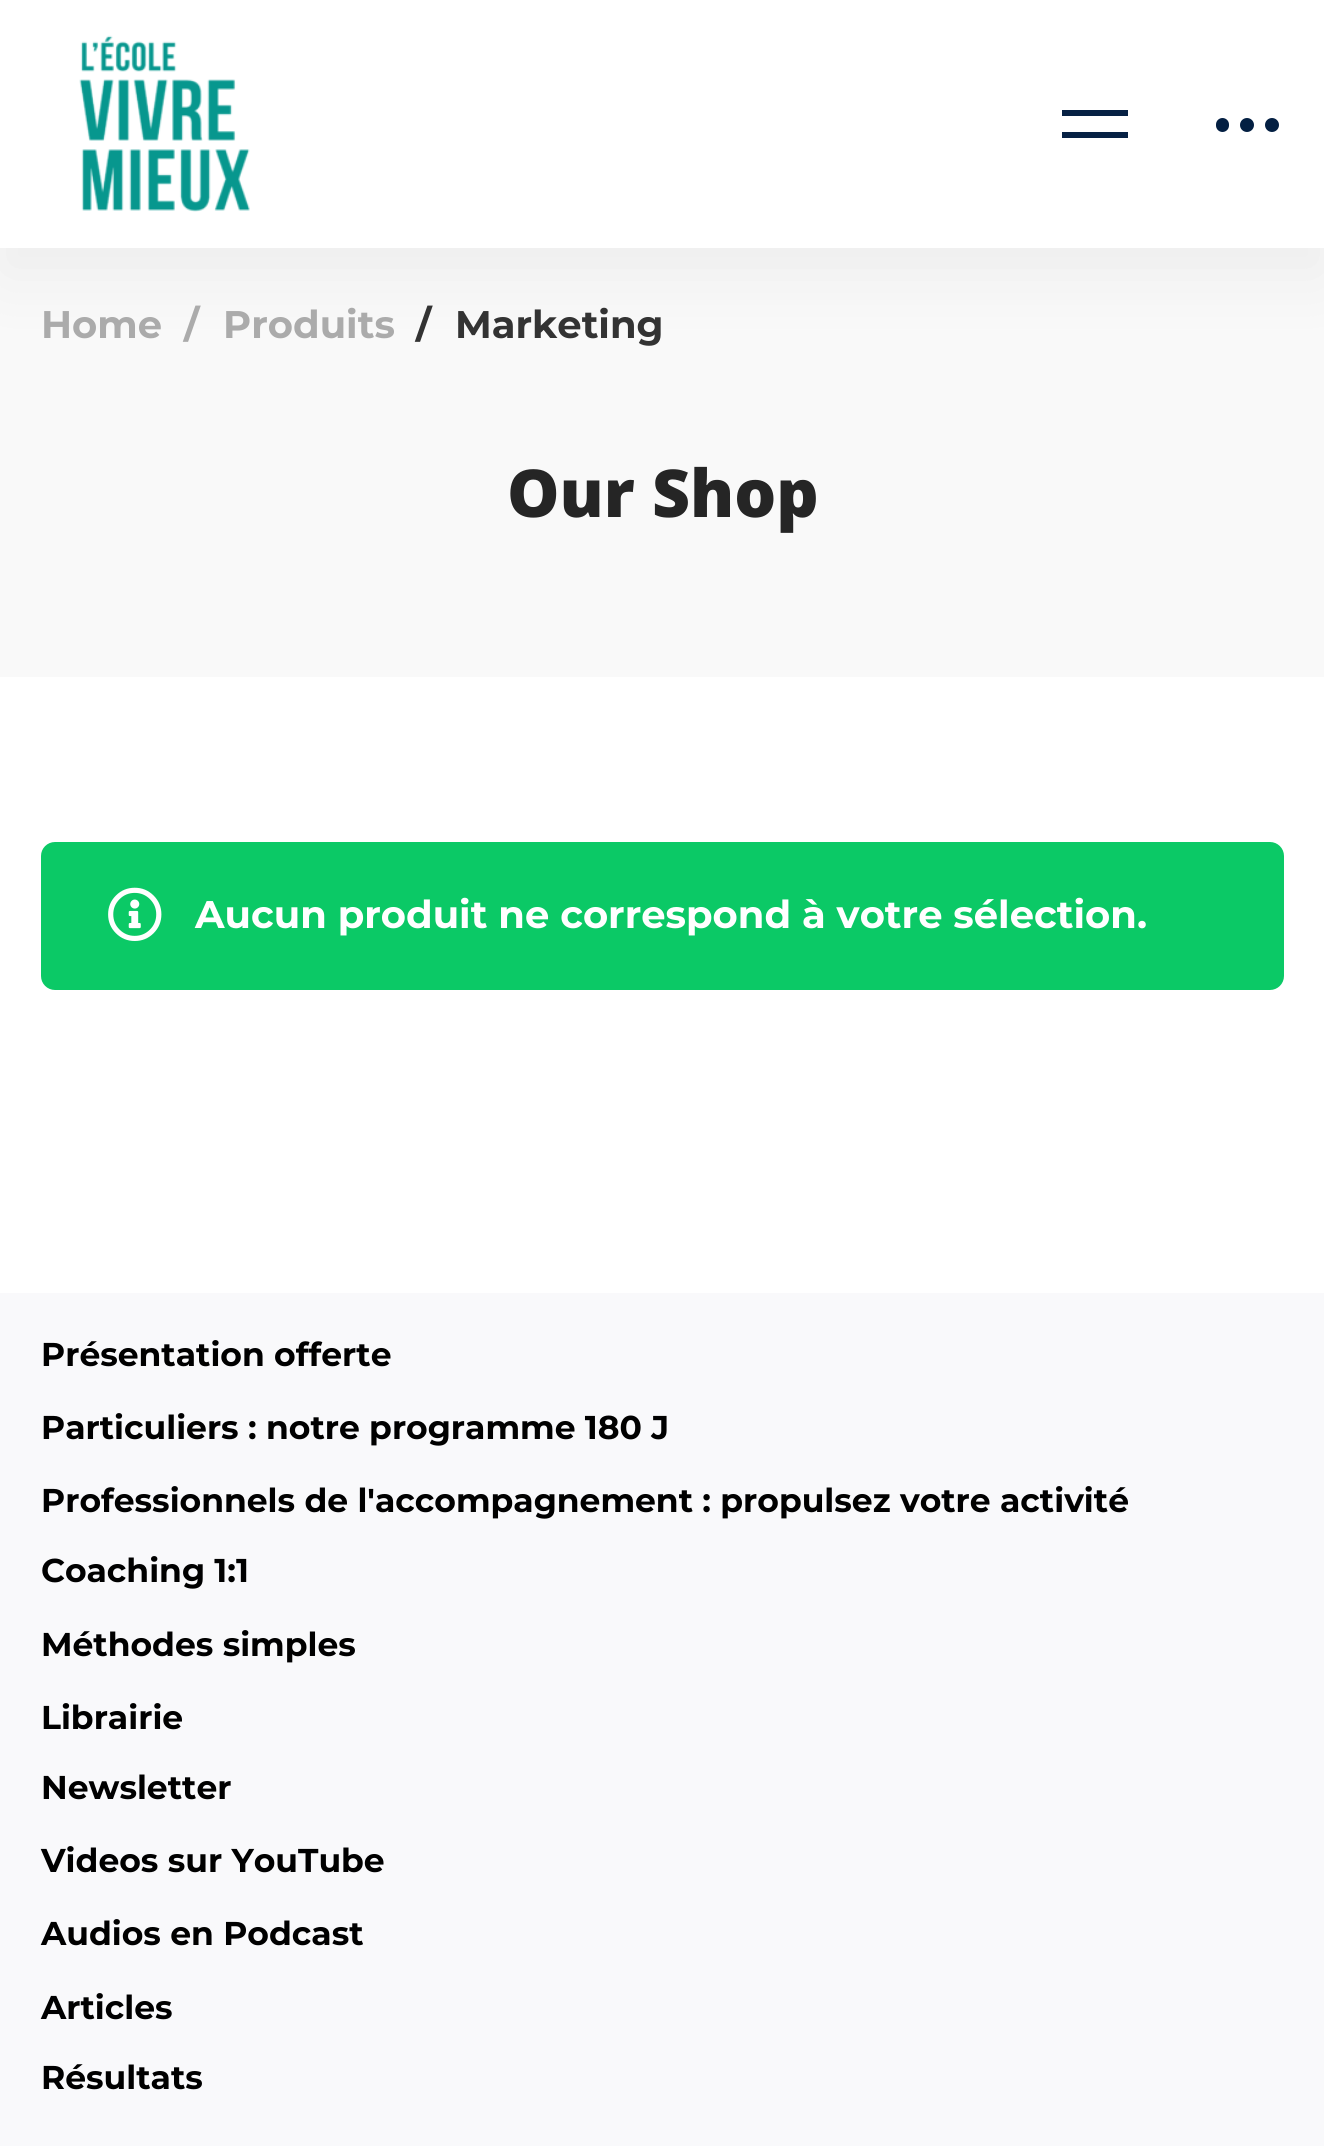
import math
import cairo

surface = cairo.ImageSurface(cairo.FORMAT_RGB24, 1324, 2146)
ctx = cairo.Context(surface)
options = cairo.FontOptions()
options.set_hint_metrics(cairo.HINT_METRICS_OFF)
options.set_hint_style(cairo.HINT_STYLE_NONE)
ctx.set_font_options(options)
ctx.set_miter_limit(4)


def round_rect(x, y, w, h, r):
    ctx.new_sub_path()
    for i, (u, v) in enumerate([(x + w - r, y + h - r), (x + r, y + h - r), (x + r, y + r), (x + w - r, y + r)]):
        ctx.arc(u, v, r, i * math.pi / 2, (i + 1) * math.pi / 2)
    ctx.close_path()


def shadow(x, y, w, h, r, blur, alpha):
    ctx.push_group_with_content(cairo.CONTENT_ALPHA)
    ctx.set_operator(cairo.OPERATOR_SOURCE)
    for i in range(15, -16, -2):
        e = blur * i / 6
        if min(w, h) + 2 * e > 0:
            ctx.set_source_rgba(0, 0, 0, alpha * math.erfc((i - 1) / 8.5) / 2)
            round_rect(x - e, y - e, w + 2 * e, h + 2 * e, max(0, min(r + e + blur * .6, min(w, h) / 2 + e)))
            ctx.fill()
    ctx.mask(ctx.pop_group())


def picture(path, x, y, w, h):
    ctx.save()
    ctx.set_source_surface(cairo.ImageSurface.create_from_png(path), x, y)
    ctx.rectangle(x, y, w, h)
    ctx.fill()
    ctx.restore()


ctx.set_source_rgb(1, 1, 1)
ctx.paint()
ctx.set_source_rgb(0.973, 0.973, 0.973)
ctx.rectangle(0, 248, 1324, 429)
ctx.fill()
ctx.set_source_rgb(0, 0, 0)
shadow(0, 28, 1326, 247, 0, 36, 0.05)
ctx.set_source_rgb(1, 1, 1)
ctx.rectangle(0, 0, 1324, 248)
ctx.fill()
picture("img1.png", 79, 35, 171, 177)
ctx.set_source_rgb(0.024, 0.129, 0.267)
ctx.rectangle(1062, 110, 66, 6)
ctx.fill()
ctx.rectangle(1062, 132, 66, 6)
ctx.fill()
ctx.set_source_rgb(0.012, 0.122, 0.259)
round_rect(1216, 118, 13, 14, 6.5)
ctx.fill()
ctx.arc(1247, 125, 7, 0, 2 * math.pi)
ctx.fill()
ctx.arc(1272, 125, 7, 0, 2 * math.pi)
ctx.fill()
ctx.select_font_face("Montserrat", cairo.FONT_SLANT_NORMAL, cairo.FONT_WEIGHT_BOLD)
ctx.set_font_size(38.5)
ctx.set_source_rgb(0.671, 0.671, 0.671)
ctx.move_to(41, 338)
ctx.show_text("Home")
ctx.move_to(184, 338)
ctx.show_text("/")
ctx.move_to(223, 338)
ctx.show_text("Produits")
ctx.set_source_rgb(0.2, 0.2, 0.2)
ctx.move_to(416, 338)
ctx.show_text("/")
ctx.move_to(455, 338)
ctx.show_text("Marketing")
ctx.select_font_face("Open Sans ExtraBold")
ctx.set_font_size(66)
ctx.set_source_rgb(0.145, 0.145, 0.145)
ctx.move_to(507, 517)
ctx.show_text("Our Shop")
ctx.set_source_rgb(0.043, 0.788, 0.4)
round_rect(41, 842, 1243, 148, 14)
ctx.fill()
picture("img2.png", 108, 887, 54, 54)
ctx.select_font_face("Montserrat", cairo.FONT_SLANT_NORMAL, cairo.FONT_WEIGHT_BOLD)
ctx.set_font_size(38.5)
ctx.set_source_rgb(1, 1, 1)
ctx.move_to(195, 928)
ctx.show_text("Aucun produit ne correspond à votre sélection.")
ctx.set_source_rgb(0.976, 0.976, 0.984)
ctx.rectangle(0, 1293, 1324, 853)
ctx.fill()
ctx.set_font_size(33)
ctx.set_source_rgb(0, 0, 0)
ctx.move_to(41, 1366)
ctx.show_text("Présentation offerte")
ctx.move_to(41, 1439)
ctx.show_text("Particuliers : notre programme 180 J")
ctx.move_to(41, 1512)
ctx.show_text("Professionnels de l'accompagnement : propulsez votre activité")
ctx.move_to(41, 1582)
ctx.show_text("Coaching 1:1")
ctx.move_to(41, 1656)
ctx.show_text("Méthodes simples")
ctx.move_to(41, 1729)
ctx.show_text("Librairie")
ctx.move_to(41, 1799)
ctx.show_text("Newsletter")
ctx.move_to(41, 1872)
ctx.show_text("Videos sur YouTube")
ctx.move_to(41, 1945)
ctx.show_text("Audios en Podcast")
ctx.move_to(41, 2019)
ctx.show_text("Articles")
ctx.move_to(41, 2089)
ctx.show_text("Résultats")
surface.write_to_png("page.png")
